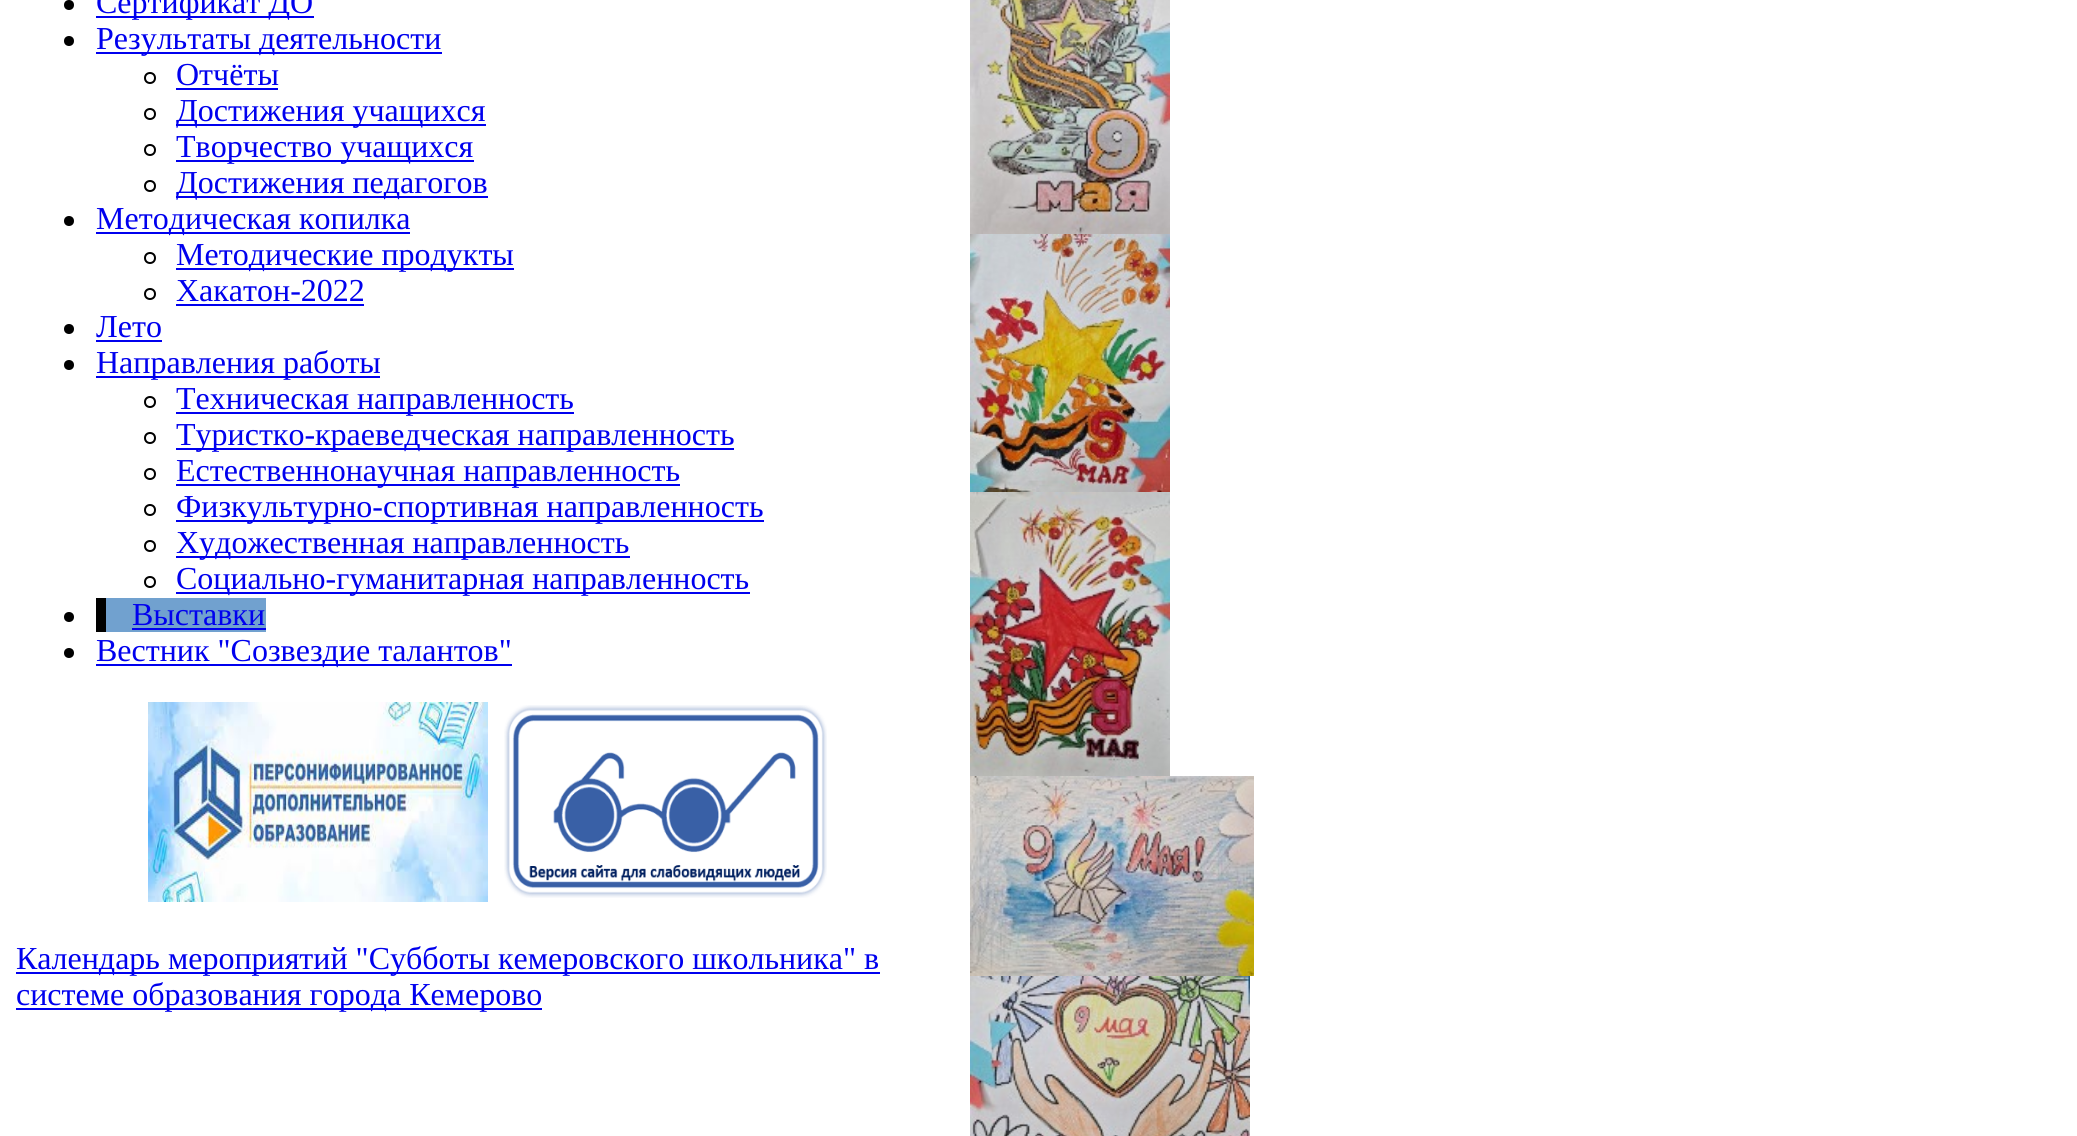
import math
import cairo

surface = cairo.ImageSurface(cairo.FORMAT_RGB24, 2077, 1136)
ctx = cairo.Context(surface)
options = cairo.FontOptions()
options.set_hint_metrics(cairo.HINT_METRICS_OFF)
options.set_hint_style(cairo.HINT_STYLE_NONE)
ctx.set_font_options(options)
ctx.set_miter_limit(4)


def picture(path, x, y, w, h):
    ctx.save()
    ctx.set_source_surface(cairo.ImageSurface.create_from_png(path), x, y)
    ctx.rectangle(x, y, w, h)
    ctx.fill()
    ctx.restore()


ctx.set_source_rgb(1, 1, 1)
ctx.paint()
ctx.set_source_rgb(0, 0, 0)
ctx.arc(69, 5, 5, 0, 2 * math.pi)
ctx.fill()
ctx.set_source_rgb(0, 0, 0.933)
ctx.rectangle(96, 16, 218, 2)
ctx.fill()
ctx.select_font_face("Liberation Serif")
ctx.set_font_size(32)
ctx.move_to(96, 13)
ctx.show_text("Сертификат ДО")
ctx.set_source_rgb(0, 0, 0)
ctx.new_path()
ctx.arc(69, 41, 5, 0, 2 * math.pi)
ctx.fill()
ctx.set_source_rgb(0, 0, 0.933)
ctx.rectangle(96, 52, 346, 2)
ctx.fill()
ctx.move_to(96, 49)
ctx.show_text("Результаты деятельности")
ctx.new_path()
ctx.arc(150, 78, 5, 0, 2 * math.pi)
ctx.set_source_rgb(0, 0, 0)
ctx.stroke()
ctx.set_source_rgb(0, 0, 0.933)
ctx.move_to(176, 85)
ctx.show_text("Отчёты")
ctx.rectangle(176, 88, 102, 2)
ctx.fill()
ctx.arc(150, 114, 5, 0, 2 * math.pi)
ctx.set_source_rgb(0, 0, 0)
ctx.stroke()
ctx.set_source_rgb(0, 0, 0.933)
ctx.rectangle(176, 124, 310, 2)
ctx.fill()
ctx.move_to(176, 121)
ctx.show_text("Достижения учащихся")
ctx.new_path()
ctx.arc(150, 150, 5, 0, 2 * math.pi)
ctx.set_source_rgb(0, 0, 0)
ctx.stroke()
ctx.set_source_rgb(0, 0, 0.933)
ctx.rectangle(176, 160, 298, 2)
ctx.fill()
ctx.move_to(176, 157)
ctx.show_text("Творчество учащихся")
ctx.new_path()
ctx.arc(150, 186, 5, 0, 2 * math.pi)
ctx.set_source_rgb(0, 0, 0)
ctx.stroke()
ctx.set_source_rgb(0, 0, 0.933)
ctx.rectangle(176, 196, 312, 2)
ctx.fill()
ctx.move_to(176, 193)
ctx.show_text("Достижения педагогов")
ctx.set_source_rgb(0, 0, 0)
ctx.new_path()
ctx.arc(69, 221, 5, 0, 2 * math.pi)
ctx.fill()
ctx.set_source_rgb(0, 0, 0.933)
ctx.rectangle(96, 232, 314, 2)
ctx.fill()
ctx.move_to(96, 229)
ctx.show_text("Методическая копилка")
ctx.new_path()
ctx.arc(150, 258, 5, 0, 2 * math.pi)
ctx.set_source_rgb(0, 0, 0)
ctx.stroke()
ctx.set_source_rgb(0, 0, 0.933)
ctx.rectangle(176, 268, 338, 2)
ctx.fill()
ctx.move_to(176, 265)
ctx.show_text("Методические продукты")
ctx.new_path()
ctx.arc(150, 294, 5, 0, 2 * math.pi)
ctx.set_source_rgb(0, 0, 0)
ctx.stroke()
ctx.set_source_rgb(0, 0, 0.933)
ctx.move_to(176, 301)
ctx.show_text("Хакатон-2022")
ctx.rectangle(176, 304, 188, 2)
ctx.fill()
ctx.set_source_rgb(0, 0, 0)
ctx.arc(69, 329, 5, 0, 2 * math.pi)
ctx.fill()
ctx.set_source_rgb(0, 0, 0.933)
ctx.move_to(96, 337)
ctx.show_text("Лето")
ctx.rectangle(96, 340, 66, 2)
ctx.fill()
ctx.set_source_rgb(0, 0, 0)
ctx.arc(69, 365, 5, 0, 2 * math.pi)
ctx.fill()
ctx.set_source_rgb(0, 0, 0.933)
ctx.rectangle(96, 376, 284, 2)
ctx.fill()
ctx.move_to(96, 373)
ctx.show_text("Направления работы")
ctx.new_path()
ctx.arc(150, 402, 5, 0, 2 * math.pi)
ctx.set_source_rgb(0, 0, 0)
ctx.stroke()
ctx.set_source_rgb(0, 0, 0.933)
ctx.rectangle(176, 412, 398, 2)
ctx.fill()
ctx.move_to(176, 409)
ctx.show_text("Техническая направленность")
ctx.new_path()
ctx.arc(150, 438, 5, 0, 2 * math.pi)
ctx.set_source_rgb(0, 0, 0)
ctx.stroke()
ctx.set_source_rgb(0, 0, 0.933)
ctx.rectangle(176, 448, 558, 2)
ctx.fill()
ctx.move_to(176, 445)
ctx.show_text("Туристко-краеведческая направленность")
ctx.new_path()
ctx.arc(150, 474, 5, 0, 2 * math.pi)
ctx.set_source_rgb(0, 0, 0)
ctx.stroke()
ctx.set_source_rgb(0, 0, 0.933)
ctx.rectangle(176, 484, 504, 2)
ctx.fill()
ctx.move_to(176, 481)
ctx.show_text("Естественнонаучная направленность")
ctx.new_path()
ctx.arc(150, 510, 5, 0, 2 * math.pi)
ctx.set_source_rgb(0, 0, 0)
ctx.stroke()
ctx.set_source_rgb(0, 0, 0.933)
ctx.rectangle(176, 520, 588, 2)
ctx.fill()
ctx.move_to(176, 517)
ctx.show_text("Физкультурно-спортивная направленность")
ctx.new_path()
ctx.arc(150, 546, 5, 0, 2 * math.pi)
ctx.set_source_rgb(0, 0, 0)
ctx.stroke()
ctx.set_source_rgb(0, 0, 0.933)
ctx.rectangle(176, 556, 454, 2)
ctx.fill()
ctx.move_to(176, 553)
ctx.show_text("Художественная направленность")
ctx.new_path()
ctx.arc(150, 582, 5, 0, 2 * math.pi)
ctx.set_source_rgb(0, 0, 0)
ctx.stroke()
ctx.set_source_rgb(0, 0, 0.933)
ctx.rectangle(176, 592, 574, 2)
ctx.fill()
ctx.move_to(176, 589)
ctx.show_text("Социально-гуманитарная направленность")
ctx.set_source_rgb(0, 0, 0)
ctx.new_path()
ctx.arc(69, 617, 5, 0, 2 * math.pi)
ctx.fill()
ctx.set_source_rgb(0.443, 0.631, 0.812)
ctx.rectangle(106, 598, 160, 34)
ctx.fill()
ctx.set_source_rgb(0, 0, 0.933)
ctx.move_to(132, 625)
ctx.show_text("Выставки")
ctx.set_source_rgb(0, 0, 0)
ctx.rectangle(96, 598, 10, 34)
ctx.fill()
ctx.set_source_rgb(0, 0, 0.933)
ctx.rectangle(132, 628, 134, 2)
ctx.fill()
ctx.set_source_rgb(0, 0, 0)
ctx.arc(69, 653, 5, 0, 2 * math.pi)
ctx.fill()
ctx.set_source_rgb(0, 0, 0.933)
ctx.rectangle(96, 664, 416, 2)
ctx.fill()
ctx.move_to(96, 661)
ctx.show_text("Вестник \"Созвездие талантов\"")
picture("img1.png", 148, 702, 340, 200)
picture("img2.png", 504, 705, 323, 193)
ctx.rectangle(16, 972, 864, 2)
ctx.fill()
ctx.move_to(16, 969)
ctx.show_text("Календарь мероприятий \"Субботы кемеровского школьника\" в")
ctx.rectangle(16, 1008, 526, 2)
ctx.fill()
ctx.move_to(16, 1005)
ctx.show_text("системе образования города Кемерово")
picture("img3.png", 970, 0, 200, 234)
picture("img4.png", 970, 234, 200, 258)
picture("img5.png", 970, 492, 200, 284)
picture("img6.png", 970, 776, 284, 200)
picture("img7.png", 970, 976, 280, 160)
surface.write_to_png("page.png")
